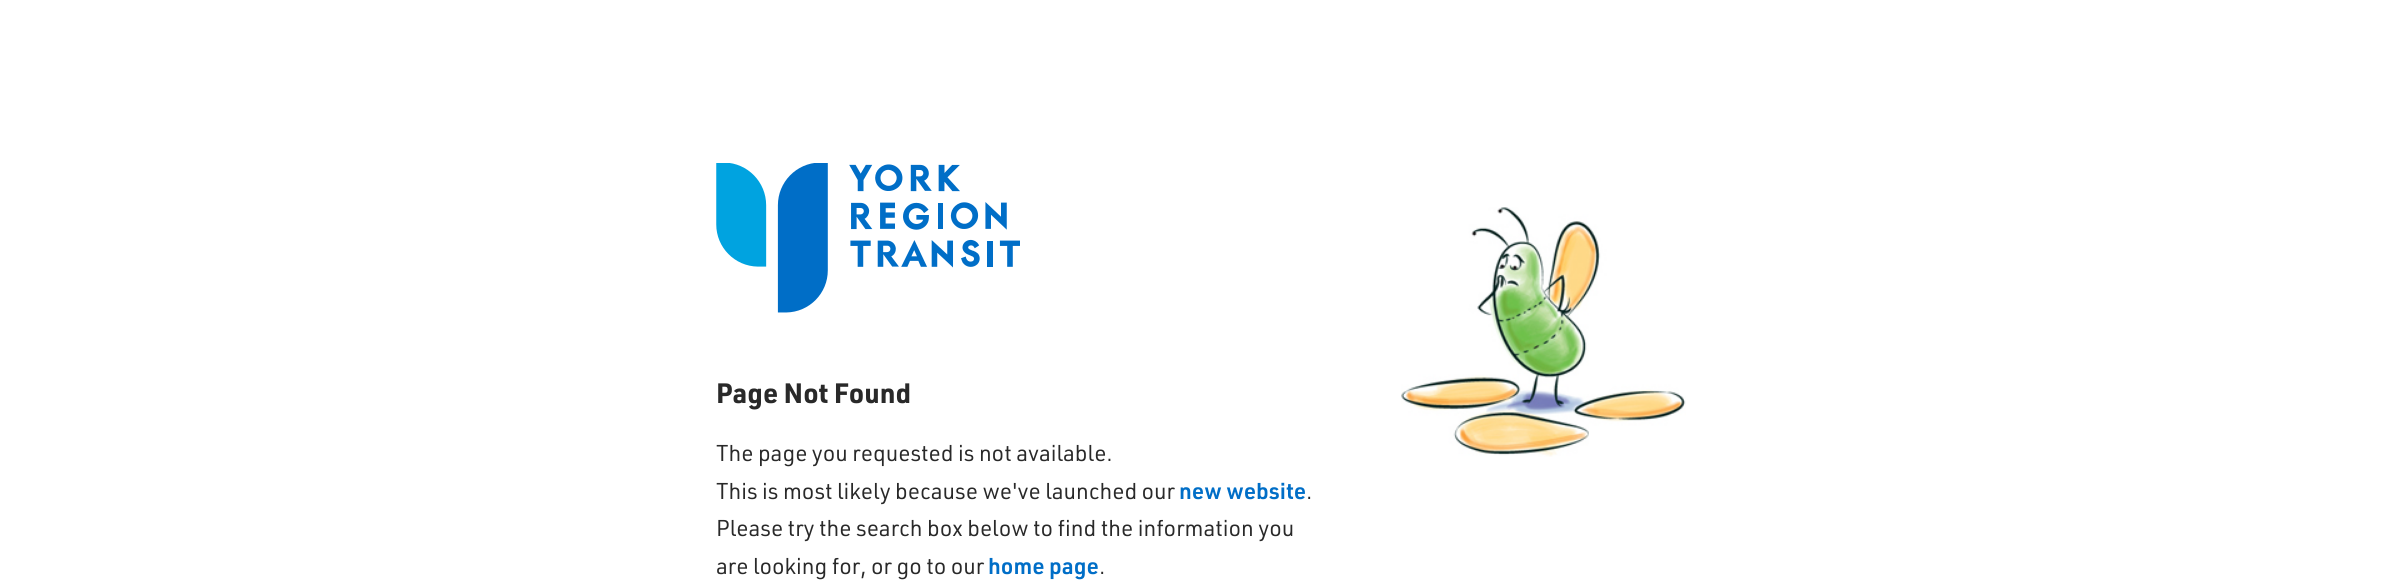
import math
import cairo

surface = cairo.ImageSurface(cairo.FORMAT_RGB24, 2393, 588)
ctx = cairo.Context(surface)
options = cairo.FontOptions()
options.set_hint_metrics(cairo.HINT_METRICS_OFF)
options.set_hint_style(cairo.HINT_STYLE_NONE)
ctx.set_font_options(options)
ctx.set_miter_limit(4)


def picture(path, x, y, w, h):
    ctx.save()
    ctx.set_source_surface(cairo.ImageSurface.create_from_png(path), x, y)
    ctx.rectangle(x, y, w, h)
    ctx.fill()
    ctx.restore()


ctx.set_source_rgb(1, 1, 1)
ctx.paint()
picture("img1.png", 1401, 207, 285, 250)
picture("img2.png", 716, 163, 304, 150)
ctx.select_font_face("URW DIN", cairo.FONT_SLANT_NORMAL, cairo.FONT_WEIGHT_BOLD)
ctx.set_font_size(27.5)
ctx.set_source_rgb(0.161, 0.161, 0.161)
ctx.move_to(716, 403)
ctx.show_text("Page Not Found")
ctx.select_font_face("URW DIN")
ctx.set_font_size(22.5)
ctx.move_to(716, 461)
ctx.show_text("The page you requested is not available.")
ctx.move_to(716, 499)
ctx.show_text("This is most likely because we've launched our")
ctx.select_font_face("URW DIN SemiBold")
ctx.set_source_rgb(0, 0.431, 0.78)
ctx.move_to(1179, 499)
ctx.show_text("new website")
ctx.select_font_face("URW DIN")
ctx.set_source_rgb(0.161, 0.161, 0.161)
ctx.move_to(1306, 499)
ctx.show_text(".")
ctx.move_to(716, 536)
ctx.show_text("Please try the search box below to find the information you")
ctx.move_to(716, 574)
ctx.show_text("are looking for, or go to our")
ctx.select_font_face("URW DIN SemiBold")
ctx.set_source_rgb(0, 0.431, 0.78)
ctx.move_to(988, 574)
ctx.show_text("home page")
ctx.select_font_face("URW DIN")
ctx.set_source_rgb(0.161, 0.161, 0.161)
ctx.move_to(1099, 574)
ctx.show_text(".")
surface.write_to_png("page.png")
